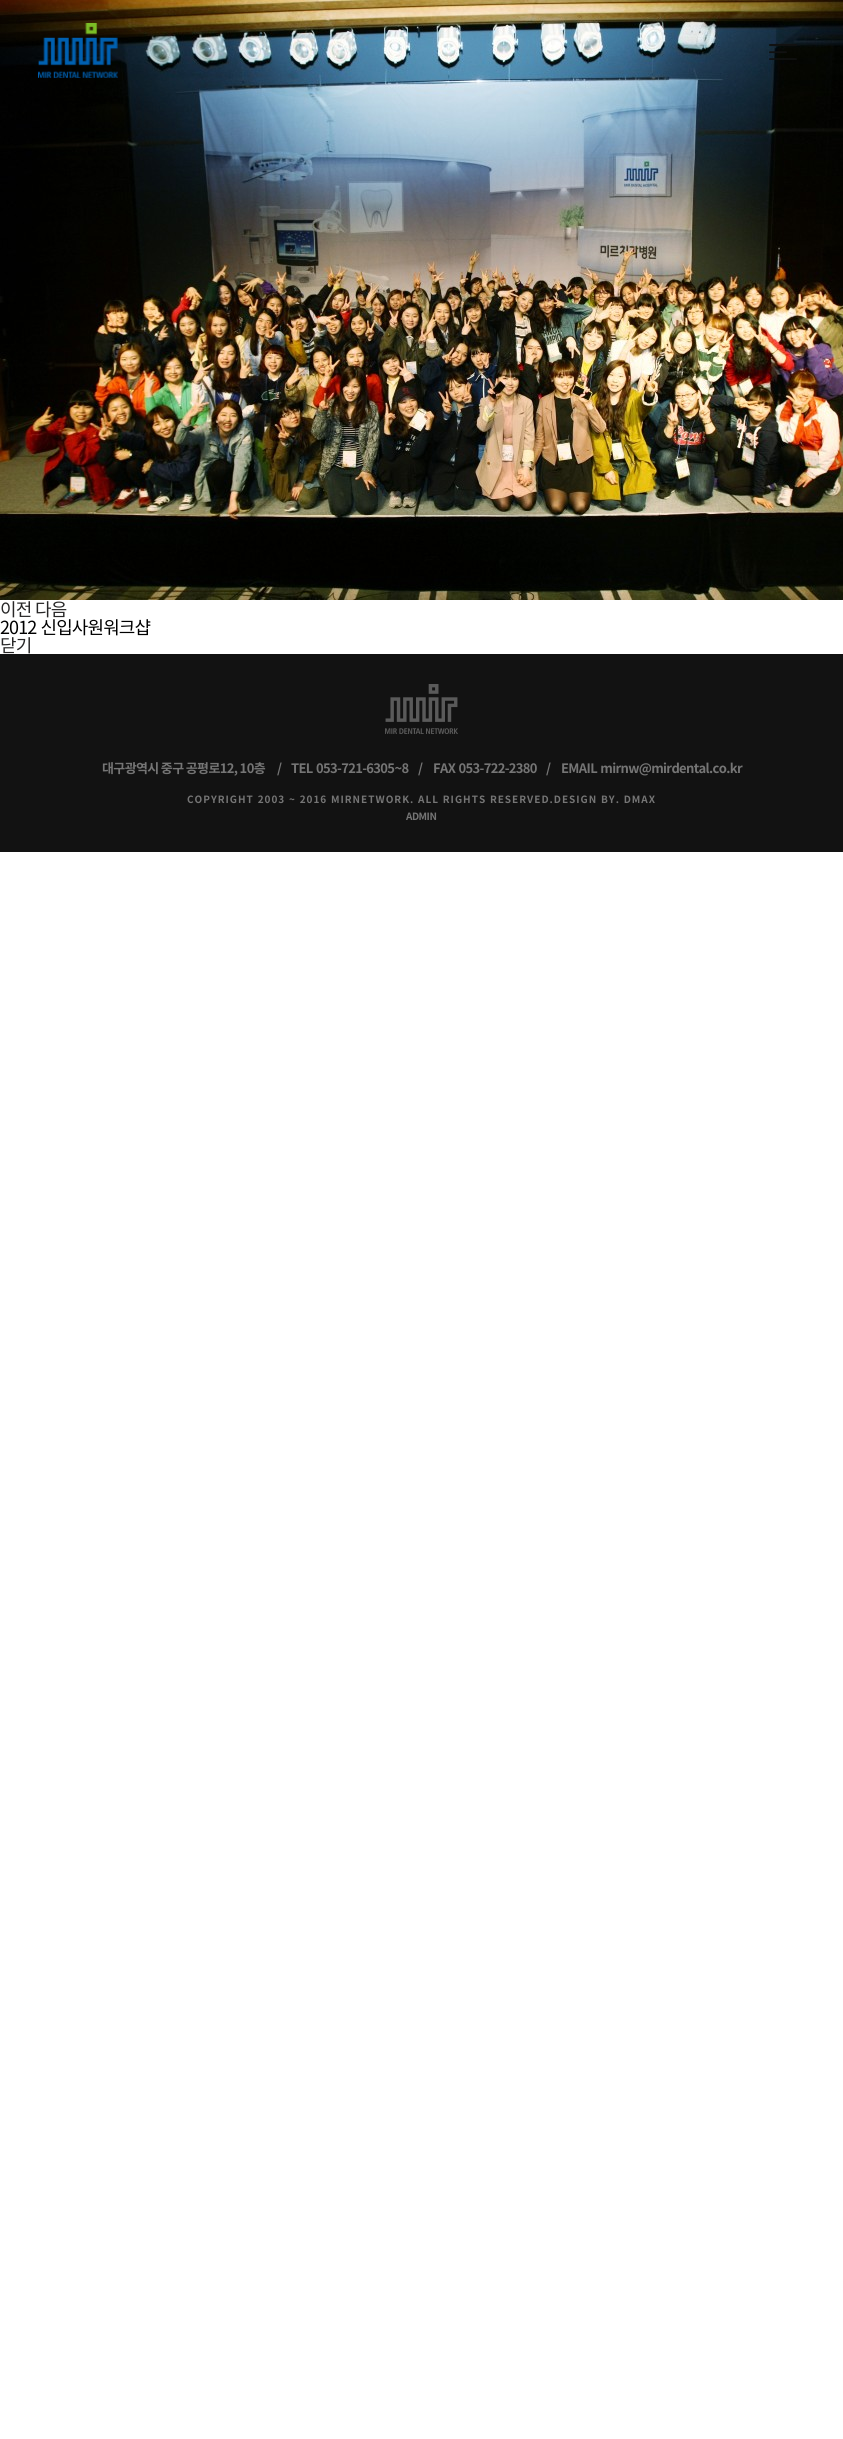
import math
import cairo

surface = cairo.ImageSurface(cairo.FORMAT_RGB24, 843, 2439)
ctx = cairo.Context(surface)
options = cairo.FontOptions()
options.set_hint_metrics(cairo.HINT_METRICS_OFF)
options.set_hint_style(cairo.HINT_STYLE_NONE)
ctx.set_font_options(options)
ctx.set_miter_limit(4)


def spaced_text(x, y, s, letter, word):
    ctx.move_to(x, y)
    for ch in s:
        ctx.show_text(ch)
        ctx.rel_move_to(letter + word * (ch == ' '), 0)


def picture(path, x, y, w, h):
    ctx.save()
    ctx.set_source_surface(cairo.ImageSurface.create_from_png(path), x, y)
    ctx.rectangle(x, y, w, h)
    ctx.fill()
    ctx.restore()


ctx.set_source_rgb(1, 1, 1)
ctx.paint()
picture("img3.png", 0, 0, 843, 600)
picture("img1.png", 38, 23, 80, 55)
picture("img2.png", 769, 44, 28, 16)
ctx.select_font_face("Noto Sans KR")
ctx.set_font_size(18)
ctx.set_source_rgb(0.157, 0.153, 0.153)
spaced_text(0, 616, "이전", -0.9, 0)
spaced_text(35, 616, "다음", -0.9, 0)
ctx.set_source_rgb(0, 0, 0)
spaced_text(0, 634, "2012 신입사원워크샵", -0.9, 1)
ctx.set_source_rgb(0.157, 0.153, 0.153)
spaced_text(0, 652, "닫기", -0.9, 0)
ctx.set_source_rgb(0.071, 0.071, 0.071)
ctx.rectangle(0, 654, 843, 198)
ctx.fill()
picture("img4.png", 385, 684, 73, 50)
ctx.select_font_face("Noto Sans KR", cairo.FONT_SLANT_NORMAL, cairo.FONT_WEIGHT_BOLD)
ctx.set_font_size(13)
ctx.set_source_rgb(0.459, 0.459, 0.459)
spaced_text(102, 773, "대구광역시 중구 공평로12, 10층", -0.65, 0)
spaced_text(277, 773, "/", -0.65, 0)
spaced_text(291, 773, "TEL 053-721-6305~8", -0.65, 1)
spaced_text(418, 773, "/", -0.65, 0)
spaced_text(433, 773, "FAX 053-722-2380", -0.65, 1)
spaced_text(546, 773, "/", -0.65, 0)
spaced_text(561, 773, "EMAIL mirnw@mirdental.co.kr", -0.65, 1)
ctx.set_font_size(10)
spaced_text(187, 803, "COPYRIGHT 2003 ~ 2016 MIRNETWORK. ALL RIGHTS RESERVED.DESIGN BY. DMAX", 1, 0.5)
spaced_text(406, 820, "ADMIN", -0.5, 0)
surface.write_to_png("page.png")
